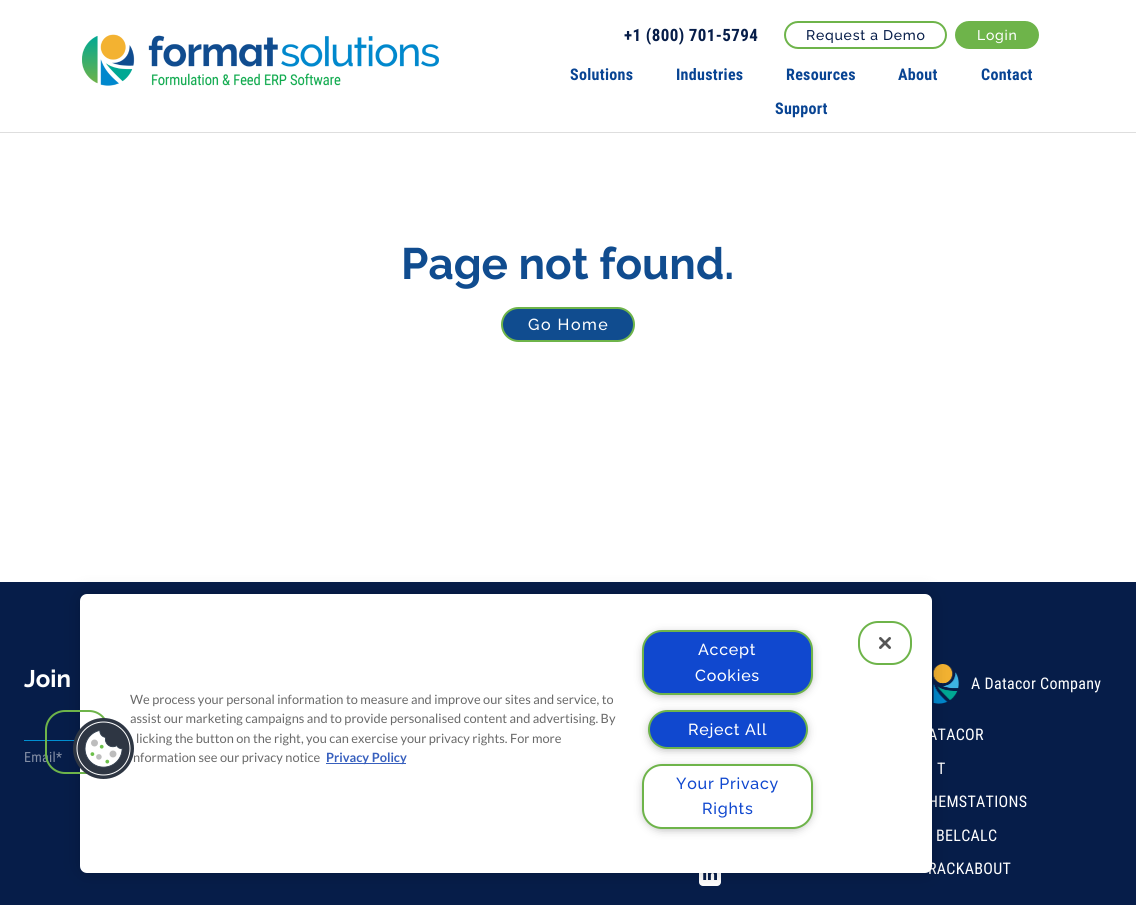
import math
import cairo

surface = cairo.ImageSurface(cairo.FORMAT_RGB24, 1136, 905)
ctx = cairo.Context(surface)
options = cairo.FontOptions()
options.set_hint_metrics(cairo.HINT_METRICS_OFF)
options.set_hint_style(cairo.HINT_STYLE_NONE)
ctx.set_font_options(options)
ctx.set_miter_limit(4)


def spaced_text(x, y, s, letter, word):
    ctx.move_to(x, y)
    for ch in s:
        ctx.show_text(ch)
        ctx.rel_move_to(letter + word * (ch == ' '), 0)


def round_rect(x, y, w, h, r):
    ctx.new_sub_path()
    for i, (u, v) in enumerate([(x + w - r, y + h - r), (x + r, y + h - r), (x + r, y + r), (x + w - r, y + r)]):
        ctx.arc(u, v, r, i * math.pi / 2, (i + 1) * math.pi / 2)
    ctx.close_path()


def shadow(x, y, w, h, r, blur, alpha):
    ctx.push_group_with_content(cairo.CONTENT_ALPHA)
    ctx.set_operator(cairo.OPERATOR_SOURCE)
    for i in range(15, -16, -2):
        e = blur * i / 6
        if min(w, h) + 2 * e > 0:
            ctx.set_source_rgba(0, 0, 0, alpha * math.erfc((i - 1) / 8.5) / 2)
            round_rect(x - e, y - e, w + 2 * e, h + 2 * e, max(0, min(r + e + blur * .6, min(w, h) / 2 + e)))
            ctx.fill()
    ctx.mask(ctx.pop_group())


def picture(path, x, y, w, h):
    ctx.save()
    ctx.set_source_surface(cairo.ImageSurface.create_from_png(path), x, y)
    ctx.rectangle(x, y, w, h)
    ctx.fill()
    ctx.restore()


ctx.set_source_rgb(1, 1, 1)
ctx.paint()
ctx.set_source_rgb(0.871, 0.871, 0.871)
ctx.rectangle(0, 132, 1136, 1)
ctx.fill()
picture("img1.png", 82, 34, 357, 52)
ctx.select_font_face("Roboto Condensed", cairo.FONT_SLANT_NORMAL, cairo.FONT_WEIGHT_BOLD)
ctx.set_font_size(17)
ctx.set_source_rgb(0.027, 0.114, 0.286)
spaced_text(624, 41, "+1 (800) 701-5794", 0.4, 0)
round_rect(785, 22, 161, 26, 13)
ctx.set_source_rgb(0.431, 0.706, 0.29)
ctx.stroke()
ctx.select_font_face("Raleway Medium")
ctx.set_font_size(14)
ctx.set_source_rgb(0.027, 0.114, 0.286)
spaced_text(806, 40, "Request a Demo", 0.75, 0)
ctx.set_source_rgb(0.431, 0.706, 0.29)
round_rect(956, 22, 82, 26, 13)
ctx.fill_preserve()
ctx.stroke()
ctx.set_source_rgb(1, 1, 1)
spaced_text(977, 40, "Login", 0.75, 0)
ctx.select_font_face("Roboto Condensed", cairo.FONT_SLANT_NORMAL, cairo.FONT_WEIGHT_BOLD)
ctx.set_font_size(16)
ctx.set_source_rgb(0.035, 0.267, 0.576)
spaced_text(570, 80, "Solutions", 0.3, 0)
spaced_text(676, 80, "Industries", 0.3, 0)
spaced_text(786, 80, "Resources", 0.3, 0)
spaced_text(898, 80, "About", 0.3, 0)
spaced_text(981, 80, "Contact", 0.3, 0)
spaced_text(775, 114, "Support", 0.3, 0)
ctx.select_font_face("Raleway", cairo.FONT_SLANT_NORMAL, cairo.FONT_WEIGHT_BOLD)
ctx.set_font_size(44)
ctx.set_source_rgb(0.063, 0.298, 0.561)
ctx.move_to(401, 279)
ctx.show_text("Page not found.")
round_rect(502, 308, 132, 33, 16.5)
ctx.fill_preserve()
ctx.set_source_rgb(0.431, 0.706, 0.29)
ctx.stroke()
ctx.select_font_face("Raleway Medium")
ctx.set_font_size(16)
ctx.set_source_rgb(1, 1, 1)
spaced_text(528, 330, "Go Home", 1.5, 0)
ctx.set_source_rgb(0.027, 0.114, 0.286)
ctx.rectangle(0, 582, 1136, 323)
ctx.fill()
ctx.select_font_face("Raleway", cairo.FONT_SLANT_NORMAL, cairo.FONT_WEIGHT_BOLD)
ctx.set_font_size(24)
ctx.set_source_rgb(1, 1, 1)
ctx.move_to(24, 687)
ctx.show_text("Join")
ctx.set_source_rgb(0, 0.565, 0.824)
ctx.rectangle(24, 740, 51, 1)
ctx.fill()
ctx.select_font_face("Roboto Condensed")
ctx.set_font_size(14)
ctx.set_source_rgb(0.514, 0.557, 0.643)
spaced_text(24, 762, "Email*", 0.25, 0)
ctx.set_source_rgb(1, 1, 1)
round_rect(699, 862, 22, 24, 4)
ctx.fill()
picture("img2.png", 703, 873, 14, 7)
picture("img3.png", 932, 664, 27, 40)
ctx.set_font_size(16)
spaced_text(971, 689, "A Datacor Company", 0.3, 0)
spaced_text(928, 740, "ATACOR", 0.3, 0)
spaced_text(937, 774, "T", 0.3, 0)
spaced_text(928, 807, "HEMSTATIONS", 0.3, 0)
spaced_text(936, 841, "BELCALC", 0.3, 0)
spaced_text(928, 874, "RACKABOUT", 0.3, 0)
ctx.set_source_rgb(0, 0, 0)
shadow(80, 594, 852, 279, 7, 9, 0.2)
ctx.set_source_rgb(1, 1, 1)
round_rect(80, 594, 852, 279, 7)
ctx.fill()
round_rect(46, 711, 62, 62, 19)
ctx.set_source_rgb(0.431, 0.706, 0.29)
ctx.stroke()
ctx.select_font_face("Lato")
ctx.set_font_size(12.8)
ctx.set_source_rgb(0.412, 0.412, 0.412)
ctx.move_to(130, 723)
ctx.show_text("assist our marketing campaigns and to provide personalised content and advertising. By")
picture("img4.png", 73, 718, 61, 61)
ctx.move_to(130, 704)
ctx.show_text("We process your personal information to measure and improve our sites and service, to")
ctx.move_to(136, 743)
ctx.show_text("licking the button on the right, you can exercise your privacy rights. For more")
ctx.move_to(133, 762)
ctx.show_text("nformation see our privacy notice")
ctx.set_source_rgb(0.22, 0.376, 0.745)
ctx.rectangle(326, 763, 80, 1)
ctx.fill()
ctx.select_font_face("Lato", cairo.FONT_SLANT_NORMAL, cairo.FONT_WEIGHT_BOLD)
ctx.move_to(326, 762)
ctx.show_text("Privacy Policy")
ctx.set_source_rgb(0.6, 0.6, 0.6)
shadow(645, 635, 165, 59, 17, 5, 1)
ctx.set_source_rgb(0.063, 0.282, 0.812)
round_rect(643, 631, 169, 63, 19)
ctx.fill_preserve()
ctx.set_source_rgb(0.431, 0.706, 0.29)
ctx.stroke()
ctx.select_font_face("Raleway Medium")
ctx.set_font_size(16)
ctx.set_source_rgb(1, 1, 1)
spaced_text(698, 655, "Accept", 0.75, 0)
spaced_text(695, 681, "Cookies", 0.75, 0)
ctx.set_source_rgb(0.6, 0.6, 0.6)
shadow(651, 715, 154, 33, 16.5, 5, 1)
ctx.set_source_rgb(0.063, 0.282, 0.812)
round_rect(649, 711, 158, 37, 18.5)
ctx.fill_preserve()
ctx.set_source_rgb(0.431, 0.706, 0.29)
ctx.stroke()
ctx.set_source_rgb(1, 1, 1)
spaced_text(688, 735, "Reject All", 0.75, 0)
ctx.set_source_rgb(0.6, 0.6, 0.6)
shadow(645, 769, 165, 59, 17, 5, 1)
ctx.set_source_rgb(1, 1, 1)
round_rect(643, 765, 169, 63, 19)
ctx.fill_preserve()
ctx.set_source_rgb(0.431, 0.706, 0.29)
ctx.stroke()
ctx.set_source_rgb(0.063, 0.282, 0.812)
spaced_text(676, 789, "Your Privacy", 0.75, 0)
spaced_text(702, 814, "Rights", 0.75, 0)
picture("img5.png", 879, 637, 12, 12)
round_rect(859, 622, 52, 42, 19)
ctx.set_source_rgb(0.431, 0.706, 0.29)
ctx.stroke()
surface.write_to_png("page.png")
